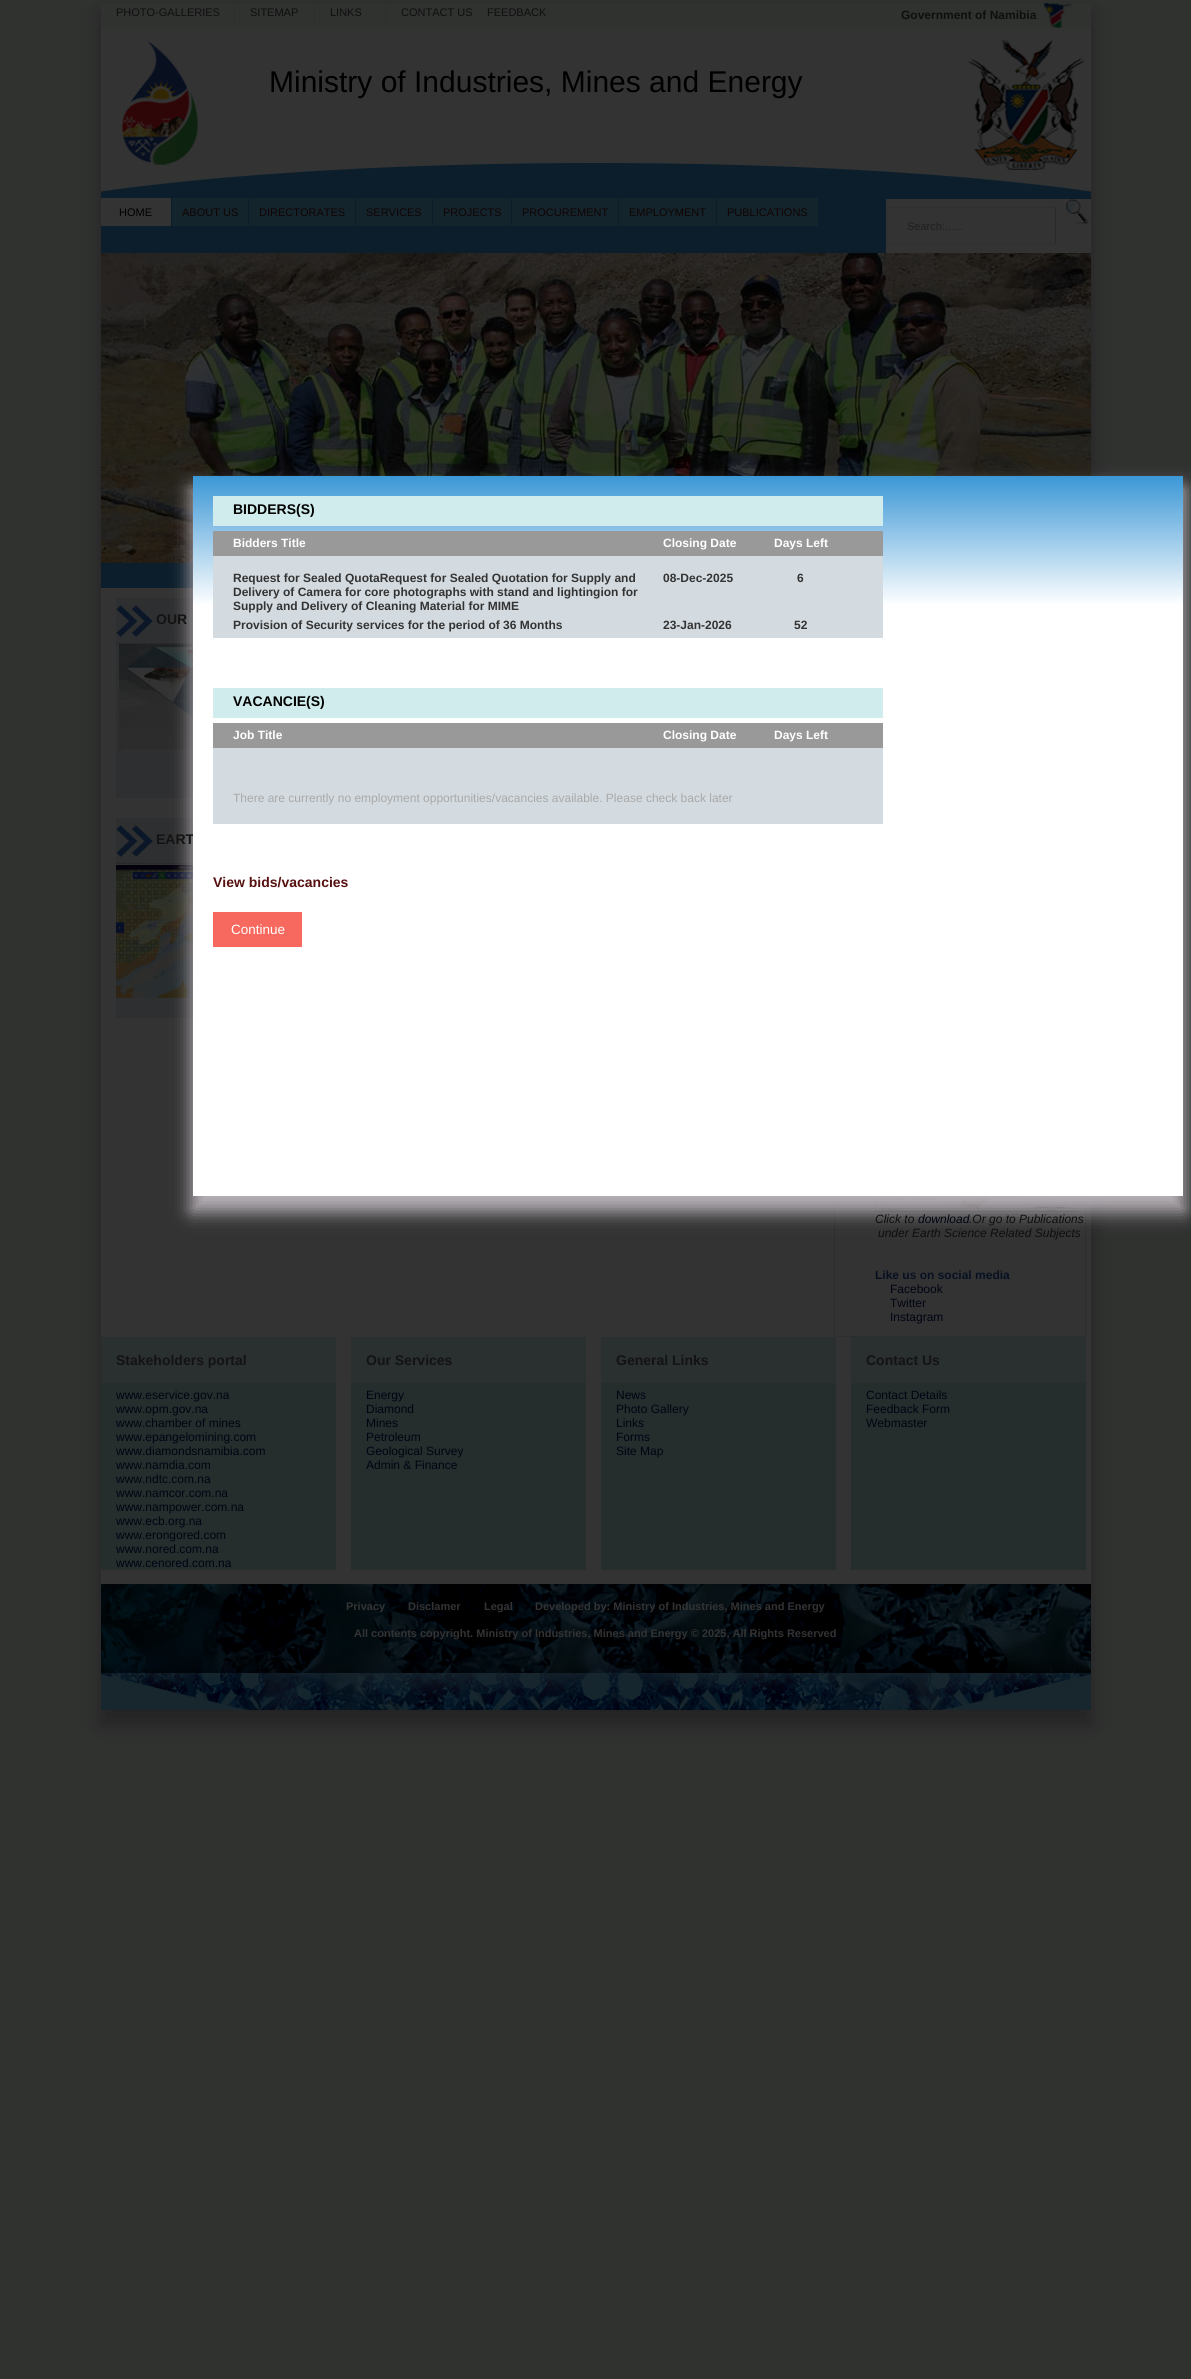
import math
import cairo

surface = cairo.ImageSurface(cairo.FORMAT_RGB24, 1191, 2379)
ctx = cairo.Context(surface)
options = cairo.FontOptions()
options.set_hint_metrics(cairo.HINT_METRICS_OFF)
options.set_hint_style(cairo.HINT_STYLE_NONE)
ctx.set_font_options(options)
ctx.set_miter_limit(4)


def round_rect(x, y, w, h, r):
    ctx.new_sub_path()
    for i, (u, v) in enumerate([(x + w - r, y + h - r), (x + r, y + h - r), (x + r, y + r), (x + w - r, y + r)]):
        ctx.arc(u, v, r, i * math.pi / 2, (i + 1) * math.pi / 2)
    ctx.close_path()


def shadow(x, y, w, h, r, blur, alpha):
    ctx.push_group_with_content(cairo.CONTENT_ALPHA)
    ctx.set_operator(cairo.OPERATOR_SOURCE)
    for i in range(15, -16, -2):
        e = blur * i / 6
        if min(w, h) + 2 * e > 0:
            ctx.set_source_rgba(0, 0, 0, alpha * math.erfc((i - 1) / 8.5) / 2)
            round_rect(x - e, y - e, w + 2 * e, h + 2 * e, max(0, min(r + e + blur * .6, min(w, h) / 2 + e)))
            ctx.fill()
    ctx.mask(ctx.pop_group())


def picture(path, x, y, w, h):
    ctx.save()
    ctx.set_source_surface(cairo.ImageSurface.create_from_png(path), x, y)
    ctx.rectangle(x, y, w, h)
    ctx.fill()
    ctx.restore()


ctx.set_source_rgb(0.188, 0.196, 0.188)
ctx.paint()
ctx.set_source_rgb(0.145, 0.141, 0.145)
shadow(99, 12, 994, 1714, 0, 9, 1)
ctx.set_source_rgb(0.2, 0.2, 0.2)
ctx.rectangle(101, 28, 990, 1556)
ctx.fill()
picture("img1.png", 101, 160, 990, 32)
ctx.set_source_rgb(0.188, 0.196, 0.188)
ctx.rectangle(101, 4, 990, 24)
ctx.fill()
ctx.set_source_rgb(0.18, 0.18, 0.184)
ctx.rectangle(234, 1, 1, 22)
ctx.fill()
ctx.select_font_face("Liberation Sans")
ctx.set_font_size(11)
ctx.set_source_rgb(0.055, 0.055, 0.055)
ctx.move_to(116, 16)
ctx.show_text("PHOTO-GALLERIES")
ctx.set_source_rgb(0.18, 0.18, 0.184)
ctx.rectangle(314, 1, 1, 22)
ctx.fill()
ctx.set_source_rgb(0.055, 0.055, 0.055)
ctx.move_to(250, 16)
ctx.show_text("SITEMAP")
ctx.set_source_rgb(0.18, 0.18, 0.184)
ctx.rectangle(385, 1, 1, 22)
ctx.fill()
ctx.set_source_rgb(0.055, 0.055, 0.055)
ctx.move_to(330, 16)
ctx.show_text("LINKS")
ctx.move_to(401, 16)
ctx.show_text("CONTACT US")
ctx.move_to(487, 16)
ctx.show_text("FEEDBACK")
ctx.select_font_face("Liberation Sans", cairo.FONT_SLANT_NORMAL, cairo.FONT_WEIGHT_BOLD)
ctx.set_font_size(12)
ctx.move_to(901, 19)
ctx.show_text("Government of Namibia")
picture("img2.png", 1044, 3, 28, 25)
picture("img3.png", 122, 40, 76, 125)
ctx.select_font_face("Liberation Sans")
ctx.set_font_size(30)
ctx.set_source_rgb(0, 0, 0)
ctx.move_to(269, 92)
ctx.show_text("Ministry of Industries, Mines and Energy")
picture("img4.png", 968, 40, 117, 130)
ctx.set_source_rgb(0.047, 0.118, 0.169)
ctx.rectangle(101, 192, 990, 48)
ctx.fill()
ctx.set_source_rgb(0.2, 0.2, 0.2)
ctx.rectangle(101, 198, 70, 28)
ctx.fill()
ctx.set_font_size(11)
ctx.set_source_rgb(0, 0, 0)
ctx.move_to(119, 216)
ctx.show_text("HOME")
ctx.set_source_rgb(0.075, 0.141, 0.173)
ctx.rectangle(172, 198, 76, 28)
ctx.fill()
ctx.set_source_rgb(0.067, 0.012, 0.012)
ctx.move_to(182, 216)
ctx.show_text("ABOUT US")
ctx.set_source_rgb(0.075, 0.141, 0.173)
ctx.rectangle(249, 198, 106, 28)
ctx.fill()
ctx.set_source_rgb(0.067, 0.012, 0.012)
ctx.move_to(259, 216)
ctx.show_text("DIRECTORATES")
ctx.set_source_rgb(0.075, 0.141, 0.173)
ctx.rectangle(356, 198, 76, 28)
ctx.fill()
ctx.set_source_rgb(0.067, 0.012, 0.012)
ctx.move_to(366, 216)
ctx.show_text("SERVICES")
ctx.set_source_rgb(0.075, 0.141, 0.173)
ctx.rectangle(433, 198, 78, 28)
ctx.fill()
ctx.set_source_rgb(0.067, 0.012, 0.012)
ctx.move_to(443, 216)
ctx.show_text("PROJECTS")
ctx.set_source_rgb(0.075, 0.141, 0.173)
ctx.rectangle(512, 198, 106, 28)
ctx.fill()
ctx.set_source_rgb(0.067, 0.012, 0.012)
ctx.move_to(522, 216)
ctx.show_text("PROCUREMENT")
ctx.set_source_rgb(0.075, 0.141, 0.173)
ctx.rectangle(619, 198, 97, 28)
ctx.fill()
ctx.set_source_rgb(0.067, 0.012, 0.012)
ctx.move_to(629, 216)
ctx.show_text("EMPLOYMENT")
ctx.set_source_rgb(0.075, 0.141, 0.173)
ctx.rectangle(717, 198, 101, 28)
ctx.fill()
ctx.set_source_rgb(0.067, 0.012, 0.012)
ctx.move_to(727, 216)
ctx.show_text("PUBLICATIONS")
ctx.set_source_rgb(0.2, 0.2, 0.2)
ctx.rectangle(886, 199, 205, 41)
ctx.fill()
picture("img5.png", 1066, 199, 23, 25)
ctx.set_source_rgb(0.188, 0.188, 0.196)
ctx.rectangle(886, 207, 170, 1)
ctx.fill()
ctx.set_source_rgb(0.161, 0.161, 0.161)
ctx.rectangle(1055, 207, 1, 38)
ctx.fill()
ctx.set_source_rgb(0.188, 0.188, 0.196)
ctx.rectangle(886, 244, 170, 1)
ctx.fill()
ctx.rectangle(886, 207, 1, 38)
ctx.fill()
ctx.set_source_rgb(0.122, 0.118, 0.118)
ctx.move_to(907, 230)
ctx.show_text("Search:......")
ctx.set_source_rgb(0.047, 0.118, 0.169)
ctx.rectangle(101, 240, 785, 13)
ctx.fill()
picture("img6.png", 101, 253, 990, 310)
ctx.rectangle(101, 563, 92, 25)
ctx.fill()
ctx.set_source_rgb(0.18, 0.184, 0.188)
ctx.rectangle(116, 598, 77, 200)
ctx.fill()
ctx.set_source_rgb(0.161, 0.161, 0.161)
ctx.rectangle(116, 643, 77, 1)
ctx.fill()
picture("img8.png", 119, 644, 74, 105)
ctx.set_source_rgb(0.18, 0.184, 0.188)
ctx.rectangle(116, 818, 77, 200)
ctx.fill()
ctx.set_source_rgb(0.161, 0.161, 0.161)
ctx.rectangle(116, 863, 77, 1)
ctx.fill()
picture("img9.png", 116, 865, 77, 133)
ctx.rectangle(834.5, 598.5, 251, 738)
ctx.set_source_rgb(0.173, 0.176, 0.18)
ctx.set_line_width(1)
ctx.stroke()
picture("img10.png", 875, 1196, 200, 16)
ctx.set_source_rgb(0.722, 0.698, 0.722)
shadow(191, 488, 994, 724, 0, 9, 1)
ctx.select_font_face("Liberation Sans", cairo.FONT_SLANT_NORMAL, cairo.FONT_WEIGHT_BOLD)
ctx.set_font_size(14)
ctx.set_source_rgb(0.078, 0.078, 0.078)
ctx.move_to(156, 844)
ctx.show_text("EART")
gradient = cairo.LinearGradient(688, 476, 688, 1196)
gradient.add_color_stop_rgba(0, 0.231, 0.592, 0.839, 1)
gradient.add_color_stop_rgba(0.18, 1, 1, 1, 1)
ctx.set_source(gradient)
ctx.rectangle(193, 476, 990, 720)
ctx.fill()
ctx.set_source_rgb(0.82, 0.922, 0.925)
ctx.rectangle(213, 496, 670, 30)
ctx.fill()
ctx.set_source_rgb(0, 0, 0)
ctx.move_to(233, 514)
ctx.show_text("BIDDERS(S)")
ctx.set_source_rgb(0.831, 0.859, 0.878)
ctx.rectangle(213, 556, 670, 82)
ctx.fill()
ctx.set_source_rgb(0.6, 0.6, 0.6)
ctx.rectangle(213, 531, 670, 25)
ctx.fill()
ctx.set_font_size(12)
ctx.set_source_rgb(1, 1, 1)
ctx.move_to(233, 547)
ctx.show_text("Bidders Title")
ctx.move_to(663, 547)
ctx.show_text("Closing Date")
ctx.move_to(774, 547)
ctx.show_text("Days Left")
ctx.set_source_rgb(0.2, 0.2, 0.2)
ctx.move_to(233, 582)
ctx.show_text("Request for Sealed QuotaRequest for Sealed Quotation for Supply and")
ctx.move_to(233, 596)
ctx.show_text("Delivery of Camera for core photographs with stand and lightingion for")
ctx.move_to(233, 610)
ctx.show_text("Supply and Delivery of Cleaning Material for MIME")
ctx.move_to(663, 582)
ctx.show_text("08-Dec-2025")
ctx.move_to(797, 582)
ctx.show_text("6")
ctx.move_to(233, 629)
ctx.show_text("Provision of Security services for the period of 36 Months")
ctx.move_to(663, 629)
ctx.show_text("23-Jan-2026")
ctx.move_to(794, 629)
ctx.show_text("52")
ctx.set_source_rgb(0.82, 0.922, 0.925)
ctx.rectangle(213, 688, 670, 30)
ctx.fill()
ctx.set_font_size(14)
ctx.set_source_rgb(0, 0, 0)
ctx.move_to(233, 706)
ctx.show_text("VACANCIE(S)")
ctx.set_source_rgb(0.831, 0.859, 0.878)
ctx.rectangle(213, 748, 670, 76)
ctx.fill()
ctx.set_source_rgb(0.6, 0.6, 0.6)
ctx.rectangle(213, 723, 670, 25)
ctx.fill()
ctx.set_font_size(12)
ctx.set_source_rgb(1, 1, 1)
ctx.move_to(233, 739)
ctx.show_text("Job Title")
ctx.move_to(663, 739)
ctx.show_text("Closing Date")
ctx.move_to(774, 739)
ctx.show_text("Days Left")
ctx.select_font_face("Liberation Sans")
ctx.set_source_rgb(0.659, 0.659, 0.659)
ctx.move_to(233, 802)
ctx.show_text("There are currently no employment opportunities/vacancies available. Please check back later")
ctx.select_font_face("Liberation Sans", cairo.FONT_SLANT_NORMAL, cairo.FONT_WEIGHT_BOLD)
ctx.set_font_size(14)
ctx.set_source_rgb(0.341, 0.067, 0.067)
ctx.move_to(213, 887)
ctx.show_text("View bids/vacancies")
ctx.set_source_rgb(0.965, 0.412, 0.369)
ctx.rectangle(213, 912, 89, 35)
ctx.fill()
ctx.select_font_face("Liberation Sans")
ctx.set_font_size(13.5)
ctx.set_source_rgb(1, 1, 1)
ctx.move_to(231, 934)
ctx.show_text("Continue")
picture("img7.png", 116, 605, 37, 32)
ctx.select_font_face("Liberation Sans", cairo.FONT_SLANT_NORMAL, cairo.FONT_WEIGHT_BOLD)
ctx.set_font_size(14)
ctx.set_source_rgb(0.078, 0.078, 0.078)
ctx.move_to(156, 624)
ctx.show_text("OUR")
picture("img7.png", 116, 825, 37, 32)
ctx.select_font_face("Liberation Sans", cairo.FONT_SLANT_ITALIC)
ctx.set_font_size(12)
ctx.set_source_rgb(0.055, 0.055, 0.055)
ctx.move_to(875, 1223)
ctx.show_text("Click to")
ctx.set_source_rgb(0, 0.016, 0.071)
ctx.move_to(918, 1223)
ctx.show_text("download")
ctx.set_source_rgb(0.055, 0.055, 0.055)
ctx.move_to(969, 1223)
ctx.show_text(".Or go to Publications")
ctx.move_to(878, 1237)
ctx.show_text("under Earth Science Related Subjects")
ctx.select_font_face("Liberation Sans", cairo.FONT_SLANT_NORMAL, cairo.FONT_WEIGHT_BOLD)
ctx.set_source_rgb(0.031, 0.063, 0.129)
ctx.move_to(875, 1279)
ctx.show_text("Like us on social media")
ctx.select_font_face("Liberation Sans")
ctx.set_source_rgb(0, 0.016, 0.071)
ctx.move_to(890, 1293)
ctx.show_text("Facebook")
ctx.move_to(890, 1307)
ctx.show_text("Twitter")
ctx.move_to(890, 1321)
ctx.show_text("Instagram")
ctx.set_source_rgb(0.145, 0.176, 0.176)
ctx.rectangle(101, 1383, 235, 187)
ctx.fill()
ctx.set_source_rgb(0.165, 0.184, 0.184)
ctx.rectangle(101, 1337, 235, 46)
ctx.fill()
ctx.select_font_face("Liberation Sans", cairo.FONT_SLANT_NORMAL, cairo.FONT_WEIGHT_BOLD)
ctx.set_font_size(14)
ctx.set_source_rgb(0.078, 0.078, 0.078)
ctx.move_to(116, 1365)
ctx.show_text("Stakeholders portal")
ctx.select_font_face("Liberation Sans")
ctx.set_font_size(12)
ctx.set_source_rgb(0, 0.016, 0.071)
ctx.move_to(116, 1399)
ctx.show_text("www.eservice.gov.na")
ctx.move_to(116, 1413)
ctx.show_text("www.opm.gov.na")
ctx.move_to(116, 1427)
ctx.show_text("www.chamber of mines")
ctx.move_to(116, 1441)
ctx.show_text("www.epangelomining.com")
ctx.move_to(116, 1455)
ctx.show_text("www.diamondsnamibia.com")
ctx.move_to(116, 1469)
ctx.show_text("www.namdia.com")
ctx.move_to(116, 1483)
ctx.show_text("www.ndtc.com.na")
ctx.move_to(116, 1497)
ctx.show_text("www.namcor.com.na")
ctx.move_to(116, 1511)
ctx.show_text("www.nampower.com.na")
ctx.move_to(116, 1525)
ctx.show_text("www.ecb.org.na")
ctx.move_to(116, 1539)
ctx.show_text("www.erongored.com")
ctx.move_to(116, 1553)
ctx.show_text("www.nored.com.na")
ctx.move_to(116, 1567)
ctx.show_text("www.cenored.com.na")
ctx.set_source_rgb(0.145, 0.176, 0.176)
ctx.rectangle(351, 1383, 235, 187)
ctx.fill()
ctx.set_source_rgb(0.165, 0.184, 0.184)
ctx.rectangle(351, 1337, 235, 46)
ctx.fill()
ctx.select_font_face("Liberation Sans", cairo.FONT_SLANT_NORMAL, cairo.FONT_WEIGHT_BOLD)
ctx.set_font_size(14)
ctx.set_source_rgb(0.078, 0.078, 0.078)
ctx.move_to(366, 1365)
ctx.show_text("Our Services")
ctx.select_font_face("Liberation Sans")
ctx.set_font_size(12)
ctx.set_source_rgb(0, 0.016, 0.071)
ctx.move_to(366, 1399)
ctx.show_text("Energy")
ctx.move_to(366, 1413)
ctx.show_text("Diamond")
ctx.move_to(366, 1427)
ctx.show_text("Mines")
ctx.move_to(366, 1441)
ctx.show_text("Petroleum")
ctx.move_to(366, 1455)
ctx.show_text("Geological Survey")
ctx.move_to(366, 1469)
ctx.show_text("Admin & Finance")
ctx.set_source_rgb(0.145, 0.176, 0.176)
ctx.rectangle(601, 1383, 235, 187)
ctx.fill()
ctx.set_source_rgb(0.165, 0.184, 0.184)
ctx.rectangle(601, 1337, 235, 46)
ctx.fill()
ctx.select_font_face("Liberation Sans", cairo.FONT_SLANT_NORMAL, cairo.FONT_WEIGHT_BOLD)
ctx.set_font_size(14)
ctx.set_source_rgb(0.078, 0.078, 0.078)
ctx.move_to(616, 1365)
ctx.show_text("General Links")
ctx.select_font_face("Liberation Sans")
ctx.set_font_size(12)
ctx.set_source_rgb(0, 0.016, 0.071)
ctx.move_to(616, 1399)
ctx.show_text("News")
ctx.move_to(616, 1413)
ctx.show_text("Photo Gallery")
ctx.move_to(616, 1427)
ctx.show_text("Links")
ctx.move_to(616, 1441)
ctx.show_text("Forms")
ctx.move_to(616, 1455)
ctx.show_text("Site Map")
ctx.set_source_rgb(0.145, 0.176, 0.176)
ctx.rectangle(851, 1383, 235, 187)
ctx.fill()
ctx.set_source_rgb(0.165, 0.184, 0.184)
ctx.rectangle(851, 1337, 235, 46)
ctx.fill()
ctx.select_font_face("Liberation Sans", cairo.FONT_SLANT_NORMAL, cairo.FONT_WEIGHT_BOLD)
ctx.set_font_size(14)
ctx.set_source_rgb(0.078, 0.078, 0.078)
ctx.move_to(866, 1365)
ctx.show_text("Contact Us")
ctx.select_font_face("Liberation Sans")
ctx.set_font_size(12)
ctx.set_source_rgb(0, 0.016, 0.071)
ctx.move_to(866, 1399)
ctx.show_text("Contact Details")
ctx.move_to(866, 1413)
ctx.show_text("Feedback Form")
ctx.move_to(866, 1427)
ctx.show_text("Webmaster")
picture("img11.png", 101, 1584, 990, 126)
ctx.select_font_face("Liberation Sans", cairo.FONT_SLANT_NORMAL, cairo.FONT_WEIGHT_BOLD)
ctx.set_font_size(11)
ctx.set_source_rgb(0.2, 0.2, 0.2)
ctx.move_to(346, 1610)
ctx.show_text("Privacy")
ctx.move_to(408, 1610)
ctx.show_text("Disclamer")
ctx.move_to(484, 1610)
ctx.show_text("Legal")
ctx.move_to(535, 1610)
ctx.show_text("Developed by: Ministry of Industries, Mines and Energy")
ctx.move_to(354, 1637)
ctx.show_text("All contents copyright. Ministry of Industries, Mines and Energy © 2025, All Rights Reserved")
surface.write_to_png("page.png")
